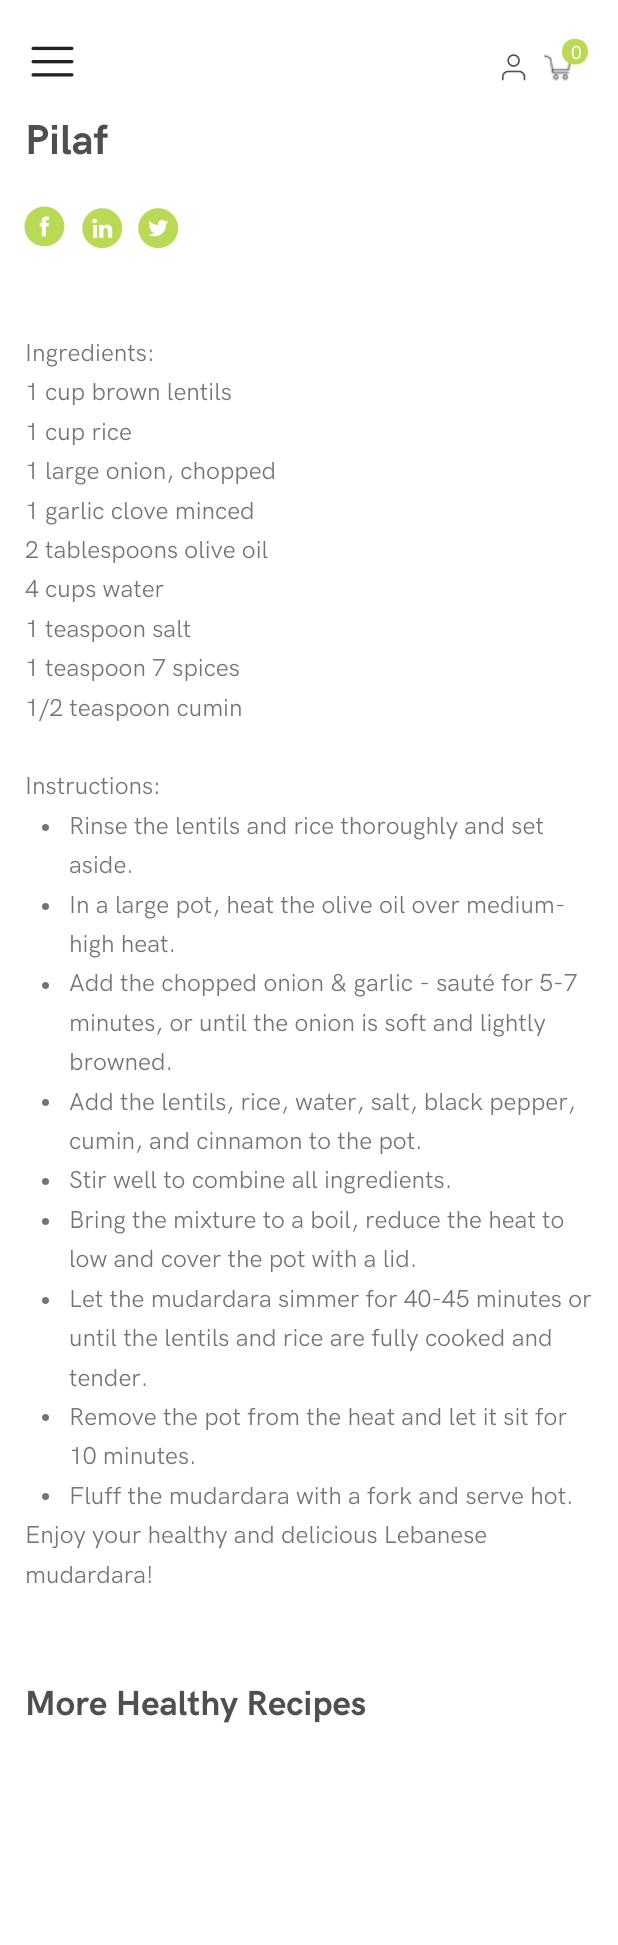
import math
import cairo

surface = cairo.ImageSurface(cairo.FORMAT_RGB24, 618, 1945)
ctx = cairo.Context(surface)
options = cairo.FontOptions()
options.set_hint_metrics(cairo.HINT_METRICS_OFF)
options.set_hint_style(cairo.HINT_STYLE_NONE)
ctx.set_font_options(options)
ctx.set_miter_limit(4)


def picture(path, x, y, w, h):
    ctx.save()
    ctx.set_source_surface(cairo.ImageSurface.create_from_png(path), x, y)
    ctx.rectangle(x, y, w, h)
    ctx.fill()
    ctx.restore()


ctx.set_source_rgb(1, 1, 1)
ctx.paint()
picture("img1.png", 31, 46, 43, 31)
picture("img3.png", 544, 54, 27, 27)
ctx.set_source_rgb(0.729, 0.855, 0.333)
ctx.new_path()
ctx.move_to(588, 51.5)
ctx.curve_to(588, 69, 562, 69, 562, 51.5)
ctx.curve_to(562, 34.5, 588, 34.5, 588, 51.5)
ctx.close_path()
ctx.fill()
ctx.select_font_face("Liberation Sans")
ctx.set_font_size(19)
ctx.set_source_rgb(1, 1, 1)
ctx.move_to(571, 59)
ctx.show_text("0")
picture("img2.png", 501, 54, 25, 27)
ctx.select_font_face("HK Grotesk", cairo.FONT_SLANT_NORMAL, cairo.FONT_WEIGHT_BOLD)
ctx.set_font_size(42)
ctx.set_source_rgb(0.31, 0.31, 0.31)
ctx.move_to(25, 154)
ctx.show_text("Pilaf")
picture("img4.png", 24, 206, 41, 41)
picture("img5.png", 82, 208, 41, 41)
picture("img6.png", 138, 208, 41, 41)
ctx.select_font_face("HK Grotesk")
ctx.set_font_size(24.6)
ctx.set_source_rgb(0.451, 0.451, 0.451)
ctx.move_to(25, 361)
ctx.show_text("Ingredients:")
ctx.move_to(25, 400)
ctx.show_text("1 cup brown lentils")
ctx.move_to(25, 440)
ctx.show_text("1 cup rice")
ctx.move_to(25, 479)
ctx.show_text("1 large onion, chopped")
ctx.move_to(25, 519)
ctx.show_text("1 garlic clove minced")
ctx.move_to(25, 558)
ctx.show_text("2 tablespoons olive oil")
ctx.move_to(25, 597)
ctx.show_text("4 cups water")
ctx.move_to(25, 637)
ctx.show_text("1 teaspoon salt")
ctx.move_to(25, 676)
ctx.show_text("1 teaspoon 7 spices")
ctx.move_to(25, 716)
ctx.show_text("1/2 teaspoon cumin")
ctx.move_to(25, 794)
ctx.show_text("Instructions:")
ctx.new_path()
ctx.arc(45.5, 827.5, 3.5, 0, 2 * math.pi)
ctx.fill()
ctx.move_to(69, 834)
ctx.show_text("Rinse the lentils and rice thoroughly and set")
ctx.move_to(69, 873)
ctx.show_text("aside.")
ctx.new_path()
ctx.arc(45.5, 906.5, 3.5, 0, 2 * math.pi)
ctx.fill()
ctx.move_to(69, 913)
ctx.show_text("In a large pot, heat the olive oil over medium-")
ctx.move_to(69, 952)
ctx.show_text("high heat.")
ctx.new_path()
ctx.arc(45.5, 985.5, 3.5, 0, 2 * math.pi)
ctx.fill()
ctx.move_to(69, 991)
ctx.show_text("Add the chopped onion & garlic - sauté for 5-7")
ctx.move_to(69, 1031)
ctx.show_text("minutes, or until the onion is soft and lightly")
ctx.move_to(69, 1070)
ctx.show_text("browned.")
ctx.new_path()
ctx.arc(45.5, 1102.5, 3.5, 0, 2 * math.pi)
ctx.fill()
ctx.move_to(69, 1110)
ctx.show_text("Add the lentils, rice, water, salt, black pepper,")
ctx.move_to(69, 1149)
ctx.show_text("cumin, and cinnamon to the pot.")
ctx.new_path()
ctx.arc(45.5, 1181.5, 3.5, 0, 2 * math.pi)
ctx.fill()
ctx.move_to(69, 1188)
ctx.show_text("Stir well to combine all ingredients.")
ctx.new_path()
ctx.arc(45.5, 1221.5, 3.5, 0, 2 * math.pi)
ctx.fill()
ctx.move_to(69, 1228)
ctx.show_text("Bring the mixture to a boil, reduce the heat to")
ctx.move_to(69, 1267)
ctx.show_text("low and cover the pot with a lid.")
ctx.new_path()
ctx.arc(45.5, 1300.5, 3.5, 0, 2 * math.pi)
ctx.fill()
ctx.move_to(69, 1307)
ctx.show_text("Let the mudardara simmer for 40-45 minutes or")
ctx.move_to(69, 1346)
ctx.show_text("until the lentils and rice are fully cooked and")
ctx.move_to(69, 1386)
ctx.show_text("tender.")
ctx.new_path()
ctx.arc(45.5, 1417.5, 3.5, 0, 2 * math.pi)
ctx.fill()
ctx.move_to(69, 1425)
ctx.show_text("Remove the pot from the heat and let it sit for")
ctx.move_to(69, 1464)
ctx.show_text("10 minutes.")
ctx.new_path()
ctx.arc(45.5, 1496.5, 3.5, 0, 2 * math.pi)
ctx.fill()
ctx.move_to(69, 1504)
ctx.show_text("Fluff the mudardara with a fork and serve hot.")
ctx.move_to(25, 1543)
ctx.show_text("Enjoy your healthy and delicious Lebanese")
ctx.move_to(25, 1583)
ctx.show_text("mudardara!")
ctx.select_font_face("HK Grotesk", cairo.FONT_SLANT_NORMAL, cairo.FONT_WEIGHT_BOLD)
ctx.set_font_size(35)
ctx.set_source_rgb(0.31, 0.31, 0.31)
ctx.move_to(25, 1715)
ctx.show_text("More Healthy Recipes")
surface.write_to_png("page.png")
